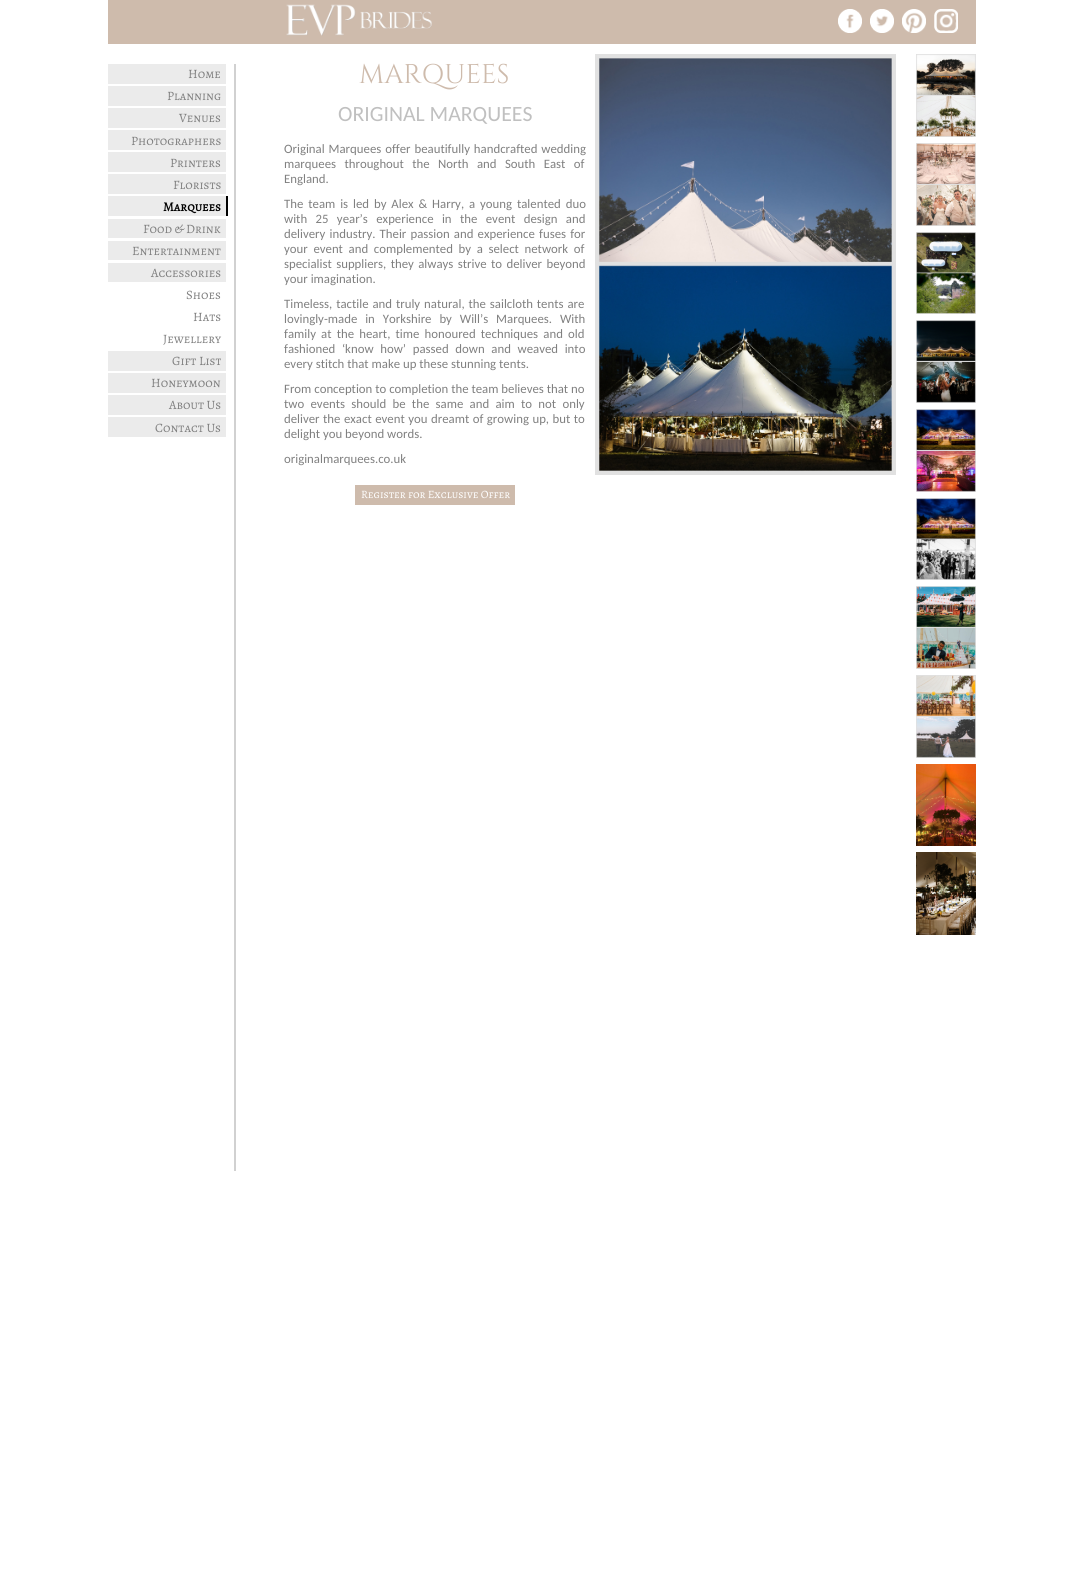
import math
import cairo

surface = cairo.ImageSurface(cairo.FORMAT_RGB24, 1084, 1581)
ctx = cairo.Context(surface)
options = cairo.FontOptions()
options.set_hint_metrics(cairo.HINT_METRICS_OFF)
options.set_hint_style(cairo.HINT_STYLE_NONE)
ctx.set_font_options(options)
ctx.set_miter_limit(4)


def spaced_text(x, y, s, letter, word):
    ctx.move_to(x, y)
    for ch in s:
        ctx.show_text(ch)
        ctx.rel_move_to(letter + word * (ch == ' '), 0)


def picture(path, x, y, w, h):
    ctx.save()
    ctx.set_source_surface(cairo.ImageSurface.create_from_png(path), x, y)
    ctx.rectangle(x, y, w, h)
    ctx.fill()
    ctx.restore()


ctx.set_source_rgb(1, 1, 1)
ctx.paint()
ctx.set_source_rgb(0.808, 0.733, 0.675)
ctx.rectangle(108, 0, 868, 44)
ctx.fill()
picture("img1.png", 286, 4, 146, 32)
picture("img2.png", 838, 9, 24, 24)
picture("img3.png", 870, 9, 24, 24)
picture("img4.png", 902, 9, 24, 24)
picture("img5.png", 934, 9, 24, 24)
ctx.set_source_rgb(0.82, 0.82, 0.82)
ctx.rectangle(234, 64, 2, 1107)
ctx.fill()
ctx.set_source_rgb(0.918, 0.918, 0.918)
ctx.rectangle(108, 64, 118, 20)
ctx.fill()
ctx.select_font_face("Alegreya SC")
ctx.set_font_size(12.8)
ctx.set_source_rgb(0.502, 0.502, 0.502)
ctx.move_to(188, 78)
ctx.show_text("Home")
ctx.set_source_rgb(0.918, 0.918, 0.918)
ctx.rectangle(108, 86, 118, 20)
ctx.fill()
ctx.set_source_rgb(0.502, 0.502, 0.502)
ctx.move_to(167, 100)
ctx.show_text("Planning")
ctx.set_source_rgb(0.918, 0.918, 0.918)
ctx.rectangle(108, 108, 118, 20)
ctx.fill()
ctx.set_source_rgb(0.502, 0.502, 0.502)
ctx.move_to(179, 122)
ctx.show_text("Venues")
ctx.set_source_rgb(0.918, 0.918, 0.918)
ctx.rectangle(108, 130, 118, 20)
ctx.fill()
ctx.set_source_rgb(0.502, 0.502, 0.502)
ctx.move_to(131, 145)
ctx.show_text("Photographers")
ctx.set_source_rgb(0.918, 0.918, 0.918)
ctx.rectangle(108, 152, 118, 20)
ctx.fill()
ctx.set_source_rgb(0.502, 0.502, 0.502)
ctx.move_to(170, 167)
ctx.show_text("Printers")
ctx.set_source_rgb(0.918, 0.918, 0.918)
ctx.rectangle(108, 174, 118, 20)
ctx.fill()
ctx.set_source_rgb(0.502, 0.502, 0.502)
ctx.move_to(173, 189)
ctx.show_text("Florists")
ctx.set_source_rgb(0.918, 0.918, 0.918)
ctx.rectangle(108, 196, 118, 20)
ctx.fill()
ctx.set_source_rgb(0, 0, 0)
ctx.rectangle(226, 196, 2, 20)
ctx.fill()
ctx.select_font_face("Alegreya SC", cairo.FONT_SLANT_NORMAL, cairo.FONT_WEIGHT_BOLD)
ctx.move_to(163, 211)
ctx.show_text("Marquees")
ctx.set_source_rgb(0.918, 0.918, 0.918)
ctx.rectangle(108, 219, 118, 19)
ctx.fill()
ctx.select_font_face("Alegreya SC")
ctx.set_source_rgb(0.502, 0.502, 0.502)
ctx.move_to(143, 233)
ctx.show_text("Food & Drink")
ctx.set_source_rgb(0.918, 0.918, 0.918)
ctx.rectangle(108, 241, 118, 19)
ctx.fill()
ctx.set_source_rgb(0.502, 0.502, 0.502)
ctx.move_to(132, 255)
ctx.show_text("Entertainment")
ctx.set_source_rgb(0.918, 0.918, 0.918)
ctx.rectangle(108, 263, 118, 19)
ctx.fill()
ctx.set_source_rgb(0.502, 0.502, 0.502)
ctx.move_to(151, 277)
ctx.show_text("Accessories")
ctx.move_to(186, 299)
ctx.show_text("Shoes")
ctx.move_to(193, 321)
ctx.show_text("Hats")
ctx.move_to(163, 343)
ctx.show_text("Jewellery")
ctx.set_source_rgb(0.918, 0.918, 0.918)
ctx.rectangle(108, 351, 118, 20)
ctx.fill()
ctx.set_source_rgb(0.502, 0.502, 0.502)
ctx.move_to(172, 365)
ctx.show_text("Gift List")
ctx.set_source_rgb(0.918, 0.918, 0.918)
ctx.rectangle(108, 373, 118, 20)
ctx.fill()
ctx.set_source_rgb(0.502, 0.502, 0.502)
ctx.move_to(151, 387)
ctx.show_text("Honeymoon")
ctx.set_source_rgb(0.918, 0.918, 0.918)
ctx.rectangle(108, 395, 118, 20)
ctx.fill()
ctx.set_source_rgb(0.502, 0.502, 0.502)
ctx.move_to(169, 409)
ctx.show_text("About Us")
ctx.set_source_rgb(0.918, 0.918, 0.918)
ctx.rectangle(108, 417, 118, 20)
ctx.fill()
ctx.set_source_rgb(0.502, 0.502, 0.502)
ctx.move_to(155, 432)
ctx.show_text("Contact Us")
ctx.select_font_face("Cinzel")
ctx.set_font_size(27)
ctx.set_source_rgb(0.808, 0.733, 0.675)
ctx.move_to(359, 83)
ctx.show_text("MARQUEES")
ctx.select_font_face("Carlito")
ctx.set_font_size(21.75)
ctx.set_source_rgb(0.753, 0.753, 0.753)
ctx.move_to(338, 121)
ctx.show_text("ORIGINAL MARQUEES")
ctx.set_font_size(12.8)
ctx.set_source_rgb(0.502, 0.502, 0.502)
spaced_text(284, 153, "Original Marquees offer beautifully handcrafted wedding", 0, 1)
spaced_text(284, 168, "marquees throughout the North and South East of", 0, 5.5)
ctx.move_to(284, 183)
ctx.show_text("England.")
spaced_text(284, 208, "The team is led by Alex & Harry, a young talented duo", 0, 2)
spaced_text(284, 223, "with 25 year’s experience in the event design and", 0, 5.5)
spaced_text(284, 238, "delivery industry. Their passion and experience fuses for", 0, 1.25)
spaced_text(284, 253, "your event and complemented by a select network of", 0, 2.75)
spaced_text(284, 268, "specialist suppliers, they always strive to deliver beyond", 0, 1.5)
ctx.move_to(284, 283)
ctx.show_text("your imagination.")
spaced_text(284, 308, "Timeless, tactile and truly natural, the sailcloth tents are", 0, 1)
spaced_text(284, 323, "lovingly-made in Yorkshire by Will’s Marquees. With", 0, 5)
spaced_text(284, 338, "family at the heart, time honoured techniques and old", 0, 2.25)
spaced_text(284, 353, "fashioned ‘know how’ passed down and weaved into", 0, 3.75)
ctx.move_to(284, 368)
ctx.show_text("every stitch that make up these stunning tents.")
ctx.move_to(284, 393)
ctx.show_text("From conception to completion the team believes that no")
spaced_text(284, 408, "two events should be the same and aim to not only", 0, 3.4)
spaced_text(284, 423, "deliver the exact event you dreamt of growing up, but to", 0, 0.6)
ctx.move_to(284, 438)
ctx.show_text("delight you beyond words.")
ctx.move_to(284, 463)
ctx.show_text("originalmarquees.co.uk")
ctx.set_source_rgb(0.808, 0.733, 0.675)
ctx.rectangle(355, 485, 160, 20)
ctx.fill()
ctx.select_font_face("Alegreya SC")
ctx.set_font_size(11.25)
ctx.set_source_rgb(1, 1, 1)
ctx.move_to(361, 498)
ctx.show_text("Register for Exclusive Offer")
picture("img6.png", 595, 54, 301, 421)
picture("img7.png", 916, 54, 60, 83)
picture("img8.png", 916, 143, 60, 83)
picture("img9.png", 916, 232, 60, 82)
picture("img10.png", 916, 320, 60, 83)
picture("img11.png", 916, 409, 60, 83)
picture("img12.png", 916, 498, 60, 82)
picture("img13.png", 916, 586, 60, 83)
picture("img14.png", 916, 675, 60, 83)
picture("img15.png", 916, 764, 60, 82)
picture("img16.png", 916, 852, 60, 83)
surface.write_to_png("page.png")
